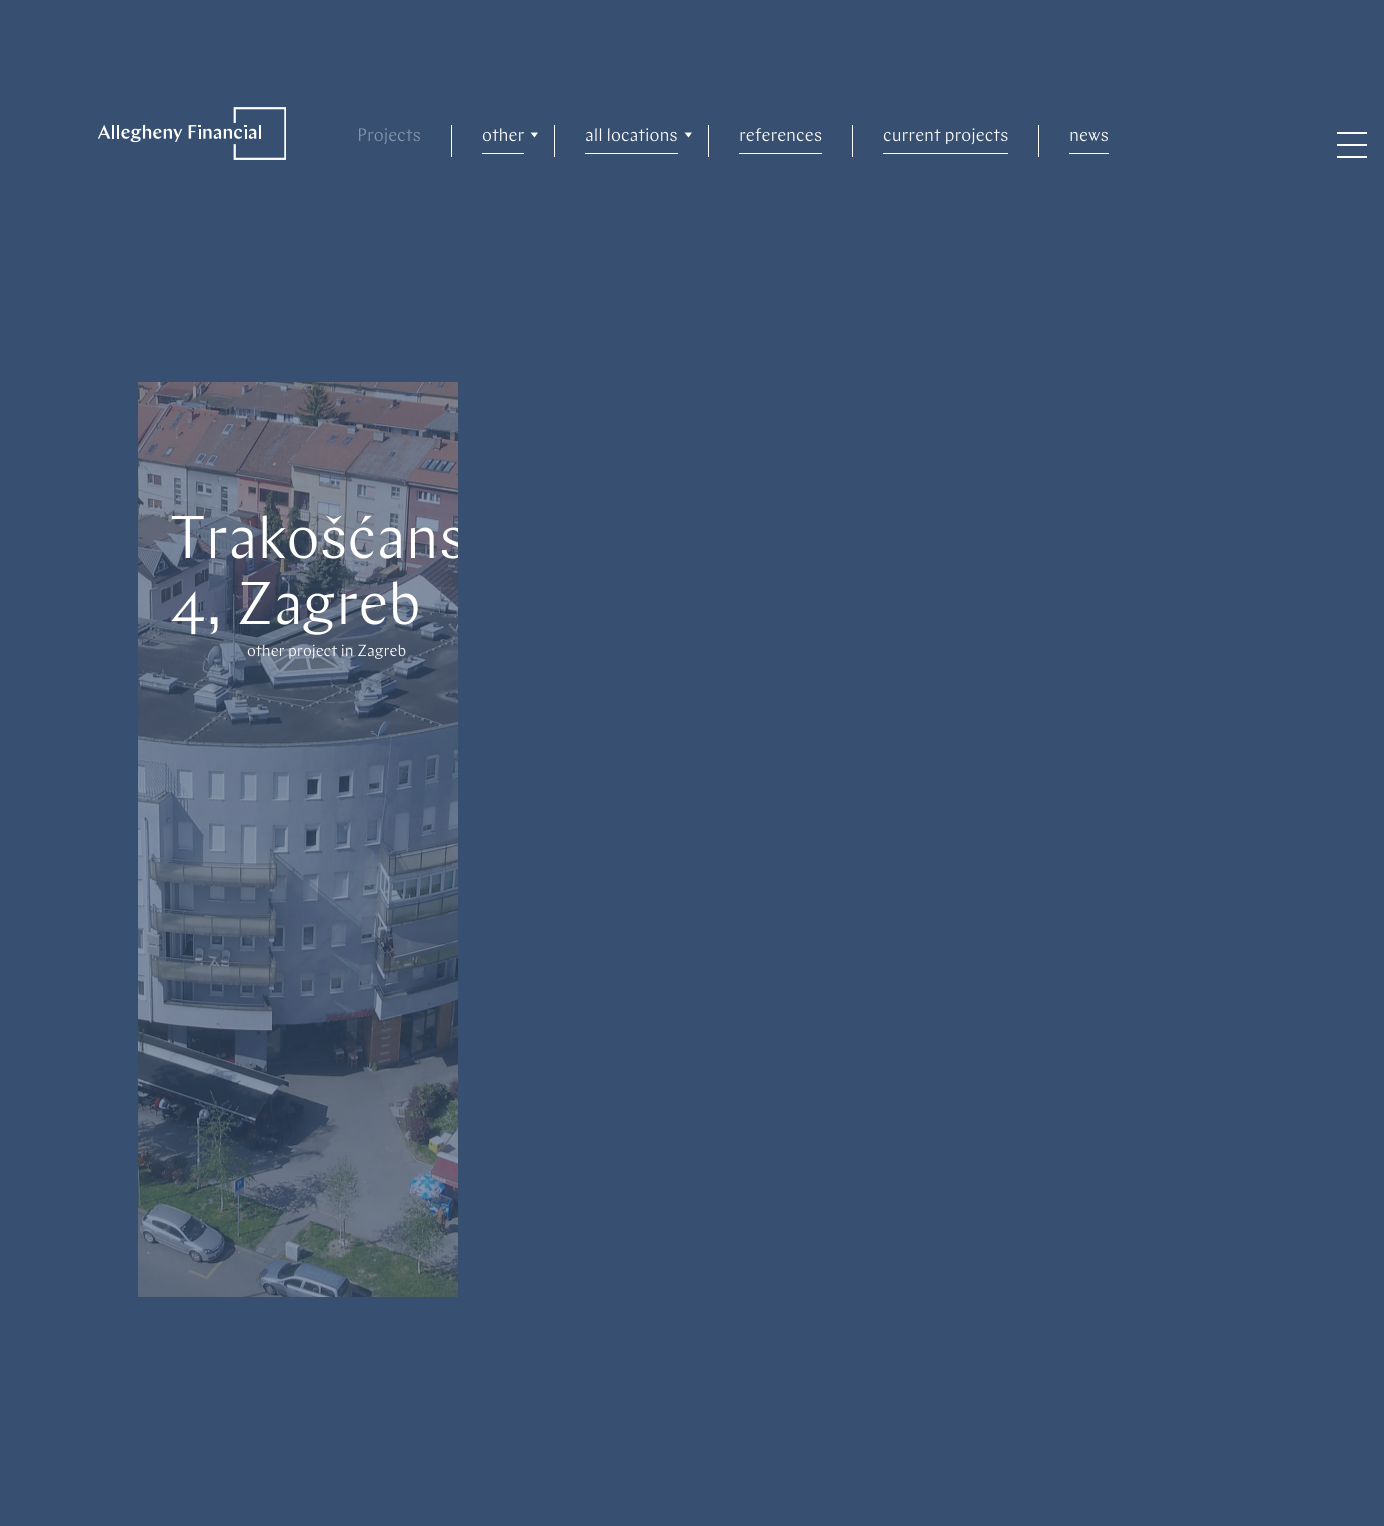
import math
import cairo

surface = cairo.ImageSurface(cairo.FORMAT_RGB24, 1384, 1526)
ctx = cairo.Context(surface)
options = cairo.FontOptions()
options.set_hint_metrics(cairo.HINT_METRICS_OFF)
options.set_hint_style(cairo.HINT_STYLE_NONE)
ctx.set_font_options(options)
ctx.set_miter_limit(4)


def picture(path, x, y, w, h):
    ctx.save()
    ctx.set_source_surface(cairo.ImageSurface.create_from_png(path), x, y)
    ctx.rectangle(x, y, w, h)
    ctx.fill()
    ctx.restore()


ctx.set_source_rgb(0.216, 0.31, 0.443)
ctx.paint()
picture("img1.png", 97, 107, 189, 53)
ctx.set_source_rgb(1, 1, 1)
ctx.rectangle(451, 125, 1, 32)
ctx.fill()
ctx.select_font_face("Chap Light")
ctx.set_font_size(18)
ctx.set_source_rgb(0.529, 0.584, 0.667)
ctx.move_to(357, 141)
ctx.show_text("Projects")
ctx.set_source_rgb(1, 1, 1)
ctx.rectangle(554, 125, 1, 32)
ctx.fill()
ctx.rectangle(482, 153, 42, 1)
ctx.fill()
ctx.move_to(482, 141)
ctx.show_text("other")
ctx.set_fill_rule(cairo.FILL_RULE_EVEN_ODD)
ctx.new_path()
ctx.move_to(534.5, 137.5)
ctx.line_to(530.5, 132.5)
ctx.line_to(538, 132.5)
ctx.close_path()
ctx.fill()
ctx.rectangle(708, 125, 1, 32)
ctx.fill()
ctx.rectangle(585, 153, 93, 1)
ctx.fill()
ctx.move_to(585, 141)
ctx.show_text("all locations")
ctx.new_path()
ctx.move_to(688.5, 137.5)
ctx.line_to(684.5, 132.5)
ctx.line_to(692, 132.5)
ctx.close_path()
ctx.fill()
ctx.rectangle(852, 125, 1, 32)
ctx.fill()
ctx.rectangle(739, 153, 83, 1)
ctx.fill()
ctx.move_to(739, 141)
ctx.show_text("references")
ctx.rectangle(1038, 125, 1, 32)
ctx.fill()
ctx.rectangle(883, 153, 125, 1)
ctx.fill()
ctx.move_to(883, 141)
ctx.show_text("current projects")
ctx.rectangle(1069, 153, 40, 1)
ctx.fill()
ctx.move_to(1069, 141)
ctx.show_text("news")
ctx.rectangle(1337, 132, 30, 2)
ctx.fill()
ctx.rectangle(1337, 144, 30, 2)
ctx.fill()
ctx.rectangle(1337, 156, 30, 2)
ctx.fill()
picture("img2.png", 138, 382, 320, 915)
ctx.save()
ctx.set_fill_rule(cairo.FILL_RULE_WINDING)
ctx.rectangle(138, 382, 320, 915)
ctx.clip()
ctx.set_font_size(60)
ctx.move_to(170, 558)
ctx.show_text("Trakošćans")
ctx.restore()
ctx.set_font_size(60)
ctx.move_to(170, 624)
ctx.show_text("4, Zagreb")
ctx.set_font_size(16)
ctx.move_to(247, 656)
ctx.show_text("other project in Zagreb")
surface.write_to_png("page.png")
